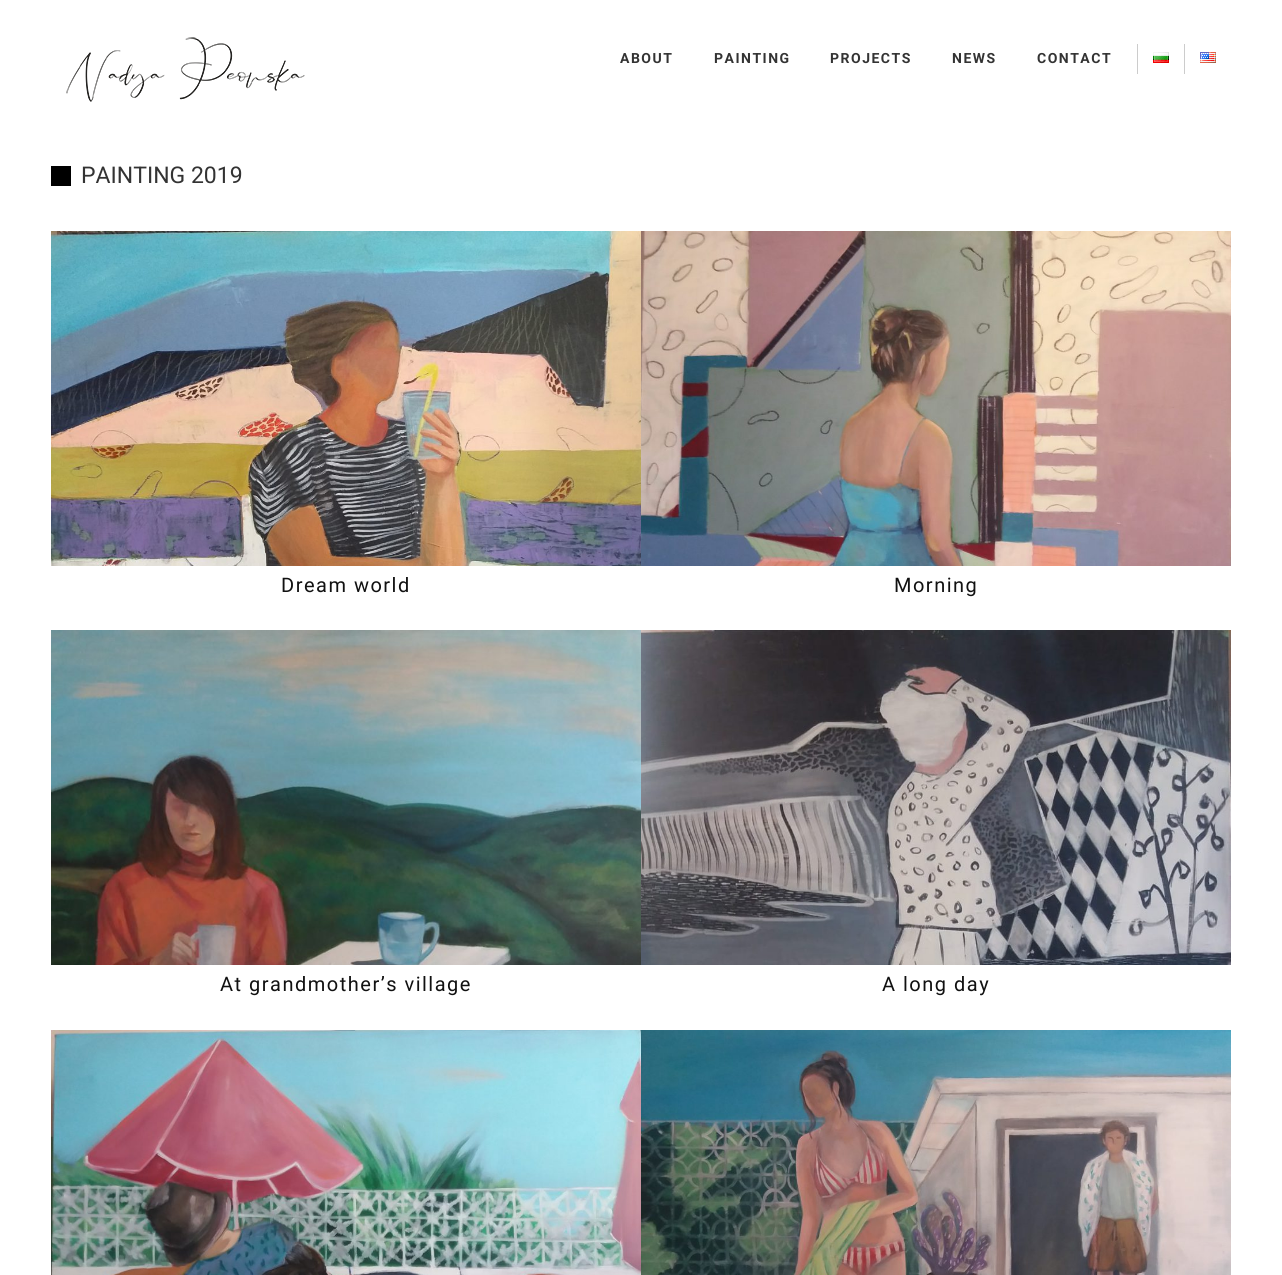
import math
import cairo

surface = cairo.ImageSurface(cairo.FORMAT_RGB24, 1282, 1275)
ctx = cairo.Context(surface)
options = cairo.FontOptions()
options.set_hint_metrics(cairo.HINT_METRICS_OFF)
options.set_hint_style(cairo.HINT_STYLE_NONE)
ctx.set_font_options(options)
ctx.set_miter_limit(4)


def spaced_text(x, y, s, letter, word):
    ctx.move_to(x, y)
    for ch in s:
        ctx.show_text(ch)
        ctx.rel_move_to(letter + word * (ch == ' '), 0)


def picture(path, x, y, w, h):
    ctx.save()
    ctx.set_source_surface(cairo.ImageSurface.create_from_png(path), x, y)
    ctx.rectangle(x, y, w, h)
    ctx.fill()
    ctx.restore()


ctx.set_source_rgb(1, 1, 1)
ctx.paint()
picture("img1.png", 66, 37, 239, 65)
ctx.select_font_face("Roboto", cairo.FONT_SLANT_NORMAL, cairo.FONT_WEIGHT_BOLD)
ctx.set_font_size(14)
ctx.set_source_rgb(0.2, 0.2, 0.2)
spaced_text(620, 63, "ABOUT", 1.5, 0)
spaced_text(714, 63, "PAINTING", 1.5, 0)
spaced_text(830, 63, "PROJECTS", 1.5, 0)
spaced_text(952, 63, "NEWS", 1.5, 0)
spaced_text(1037, 63, "CONTACT", 1.5, 0)
ctx.set_source_rgb(0.8, 0.8, 0.8)
ctx.rectangle(1137, 44, 1, 30)
ctx.fill()
picture("img2.png", 1153, 52, 16, 11)
ctx.rectangle(1184, 44, 1, 30)
ctx.fill()
picture("img3.png", 1200, 52, 16, 11)
ctx.set_source_rgb(0, 0, 0)
ctx.rectangle(51, 166, 20, 20)
ctx.fill()
ctx.select_font_face("Roboto")
ctx.set_font_size(23)
ctx.set_source_rgb(0.2, 0.2, 0.2)
ctx.move_to(81, 183)
ctx.show_text("PAINTING 2019")
picture("img4.png", 51, 231, 590, 335)
ctx.set_font_size(20)
ctx.set_source_rgb(0.067, 0.067, 0.067)
spaced_text(281, 592, "Dream world", 1.5, 0)
picture("img5.png", 641, 231, 590, 335)
spaced_text(894, 592, "Morning", 1.5, 0)
picture("img6.png", 51, 630, 590, 335)
spaced_text(220, 991, "At grandmother’s village", 1.5, 0)
picture("img7.png", 641, 630, 590, 335)
spaced_text(882, 991, "A long day", 1.5, 0)
picture("img8.png", 51, 1030, 590, 245)
picture("img9.png", 641, 1030, 590, 245)
surface.write_to_png("page.png")
